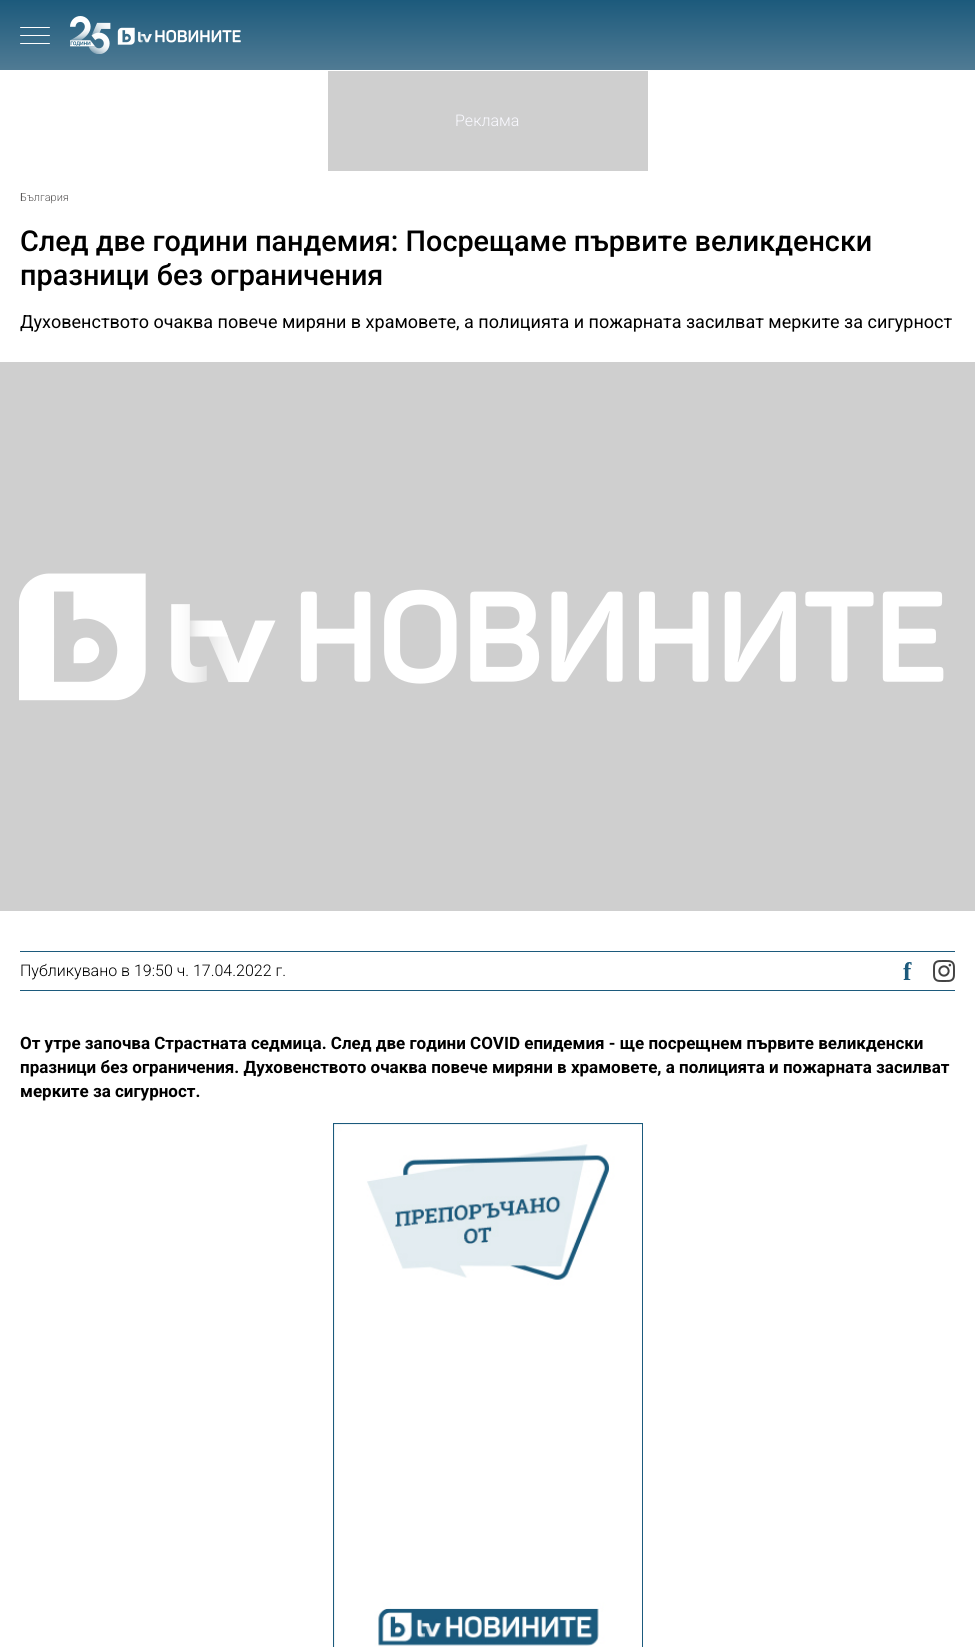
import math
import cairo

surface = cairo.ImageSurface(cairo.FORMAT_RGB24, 975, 1647)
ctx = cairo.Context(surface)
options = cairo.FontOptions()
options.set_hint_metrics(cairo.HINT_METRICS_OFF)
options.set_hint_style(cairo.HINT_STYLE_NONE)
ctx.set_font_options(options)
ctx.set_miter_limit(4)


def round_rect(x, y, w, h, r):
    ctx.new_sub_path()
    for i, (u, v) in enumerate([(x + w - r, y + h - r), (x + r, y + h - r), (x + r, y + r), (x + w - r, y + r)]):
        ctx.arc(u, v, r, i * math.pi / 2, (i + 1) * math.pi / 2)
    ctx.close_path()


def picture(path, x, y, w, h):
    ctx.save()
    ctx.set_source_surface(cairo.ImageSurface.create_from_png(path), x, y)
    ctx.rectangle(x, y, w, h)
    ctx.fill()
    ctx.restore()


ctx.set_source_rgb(1, 1, 1)
ctx.paint()
gradient = cairo.LinearGradient(488, 0, 488, 70)
gradient.add_color_stop_rgba(0, 0.11, 0.353, 0.486, 1)
gradient.add_color_stop_rgba(1, 0.314, 0.482, 0.58, 1)
ctx.set_source(gradient)
ctx.rectangle(0, 0, 975, 70)
ctx.fill()
ctx.set_source_rgb(1, 1, 1)
round_rect(20, 27, 30, 1, 0.5)
ctx.fill()
round_rect(20, 35, 30, 1, 0.5)
ctx.fill()
round_rect(20, 43, 30, 1, 0.5)
ctx.fill()
picture("img1.png", 70, 16, 171, 38)
ctx.set_source_rgb(0.812, 0.812, 0.812)
ctx.rectangle(328, 71, 320, 100)
ctx.fill()
ctx.select_font_face("Roboto Light")
ctx.set_font_size(16)
ctx.set_source_rgb(0.973, 0.973, 1)
ctx.move_to(455, 126)
ctx.show_text("Реклама")
ctx.set_font_size(11)
ctx.set_source_rgb(0.353, 0.345, 0.345)
ctx.move_to(20, 201)
ctx.show_text("България")
ctx.select_font_face("Roboto Medium")
ctx.set_font_size(28.8)
ctx.set_source_rgb(0, 0, 0)
ctx.move_to(20, 251)
ctx.show_text("След две години пандемия: Посрещаме първите великденски")
ctx.move_to(20, 285)
ctx.show_text("празници без ограничения")
ctx.select_font_face("Roboto")
ctx.set_font_size(18)
ctx.move_to(20, 328)
ctx.show_text("Духовенството очаква повече миряни в храмовете, а полицията и пожарната засилват мерките за сигурност")
ctx.set_source_rgb(0.812, 0.812, 0.812)
ctx.rectangle(0, 362, 975, 549)
ctx.fill()
picture("img2.png", 19, 573, 925, 128)
ctx.set_source_rgb(0.11, 0.353, 0.486)
ctx.rectangle(20, 951, 935, 1)
ctx.fill()
ctx.rectangle(20, 990, 935, 1)
ctx.fill()
ctx.select_font_face("Roboto Light")
ctx.set_font_size(16)
ctx.set_source_rgb(0, 0, 0)
ctx.move_to(20, 976)
ctx.show_text("Публикувано в 19:50 ч. 17.04.2022 г.")
picture("img3.png", 903, 962, 9, 18)
picture("img4.png", 933, 960, 22, 22)
ctx.select_font_face("Roboto", cairo.FONT_SLANT_NORMAL, cairo.FONT_WEIGHT_BOLD)
ctx.set_font_size(17)
ctx.move_to(20, 1049)
ctx.show_text("От утре започва Страстната седмица. След две години COVID епидемия - ще посрещнем първите великденски")
ctx.move_to(20, 1073)
ctx.show_text("празници без ограничения. Духовенството очаква повече миряни в храмовете, а полицията и пожарната засилват")
ctx.move_to(20, 1097)
ctx.show_text("мерките за сигурност.")
picture("img5.png", 333, 1123, 310, 524)
surface.write_to_png("page.png")
